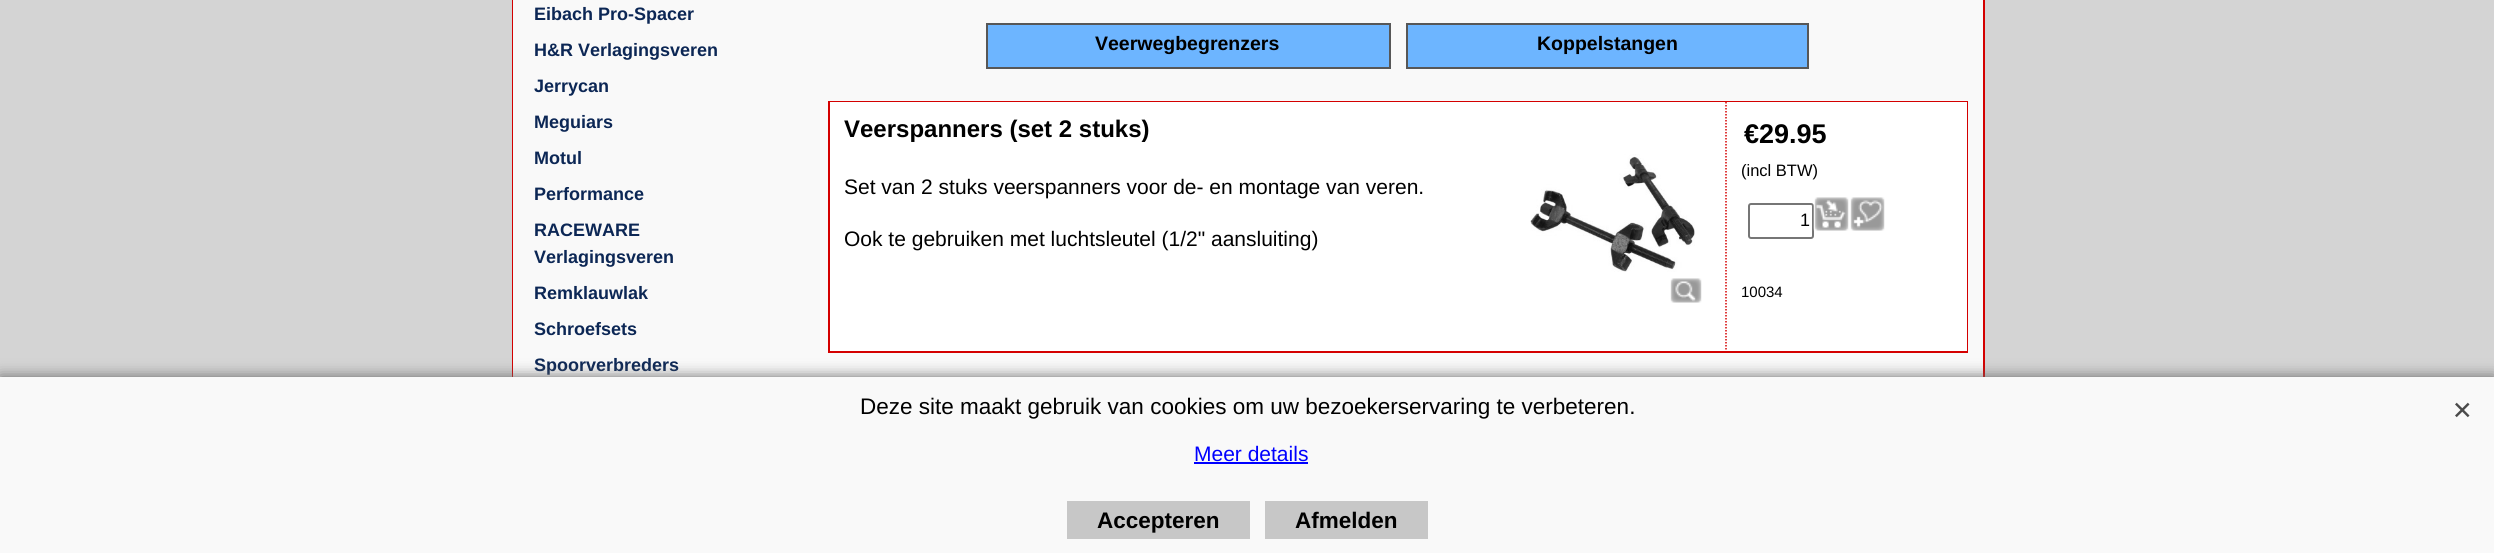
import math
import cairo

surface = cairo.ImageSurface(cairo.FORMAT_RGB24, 2494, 553)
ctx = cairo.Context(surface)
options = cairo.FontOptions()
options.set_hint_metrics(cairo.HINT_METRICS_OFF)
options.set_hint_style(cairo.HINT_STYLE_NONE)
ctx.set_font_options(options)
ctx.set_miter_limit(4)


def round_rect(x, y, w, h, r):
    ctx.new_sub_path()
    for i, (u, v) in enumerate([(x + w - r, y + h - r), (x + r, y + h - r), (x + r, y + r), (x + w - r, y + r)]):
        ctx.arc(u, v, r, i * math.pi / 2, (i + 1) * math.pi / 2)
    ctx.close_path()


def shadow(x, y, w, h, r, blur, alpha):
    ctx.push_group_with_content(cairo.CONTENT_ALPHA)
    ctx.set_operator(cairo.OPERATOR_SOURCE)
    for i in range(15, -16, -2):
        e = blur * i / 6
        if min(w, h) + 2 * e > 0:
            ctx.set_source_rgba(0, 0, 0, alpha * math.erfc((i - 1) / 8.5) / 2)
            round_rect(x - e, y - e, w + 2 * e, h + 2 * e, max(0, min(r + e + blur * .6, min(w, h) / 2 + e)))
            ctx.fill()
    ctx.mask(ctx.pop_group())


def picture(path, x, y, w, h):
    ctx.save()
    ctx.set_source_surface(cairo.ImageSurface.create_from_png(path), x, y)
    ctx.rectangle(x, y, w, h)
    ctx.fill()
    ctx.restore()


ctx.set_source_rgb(0.831, 0.831, 0.831)
ctx.paint()
ctx.rectangle(513, -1, 1471, 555)
ctx.set_source_rgb(0.831, 0, 0)
ctx.stroke()
ctx.set_source_rgb(0.976, 0.976, 0.976)
ctx.rectangle(513, 0, 8, 377)
ctx.fill()
ctx.rectangle(521, 0, 292, 32)
ctx.fill()
ctx.select_font_face("Liberation Sans", cairo.FONT_SLANT_NORMAL, cairo.FONT_WEIGHT_BOLD)
ctx.set_font_size(18)
ctx.set_source_rgb(0.047, 0.153, 0.333)
ctx.move_to(534, 20)
ctx.show_text("Eibach Pro-Spacer")
ctx.set_source_rgb(0.976, 0.976, 0.976)
ctx.rectangle(521, 32, 292, 36)
ctx.fill()
ctx.set_source_rgb(0.047, 0.153, 0.333)
ctx.move_to(534, 56)
ctx.show_text("H&R Verlagingsveren")
ctx.set_source_rgb(0.976, 0.976, 0.976)
ctx.rectangle(521, 68, 292, 36)
ctx.fill()
ctx.set_source_rgb(0.047, 0.153, 0.333)
ctx.move_to(534, 92)
ctx.show_text("Jerrycan")
ctx.set_source_rgb(0.976, 0.976, 0.976)
ctx.rectangle(521, 104, 292, 36)
ctx.fill()
ctx.set_source_rgb(0.047, 0.153, 0.333)
ctx.move_to(534, 128)
ctx.show_text("Meguiars")
ctx.set_source_rgb(0.976, 0.976, 0.976)
ctx.rectangle(521, 140, 292, 36)
ctx.fill()
ctx.set_source_rgb(0.047, 0.153, 0.333)
ctx.move_to(534, 164)
ctx.show_text("Motul")
ctx.set_source_rgb(0.976, 0.976, 0.976)
ctx.rectangle(521, 176, 292, 36)
ctx.fill()
ctx.set_source_rgb(0.047, 0.153, 0.333)
ctx.move_to(534, 200)
ctx.show_text("Performance")
ctx.set_source_rgb(0.976, 0.976, 0.976)
ctx.rectangle(521, 212, 292, 63)
ctx.fill()
ctx.set_source_rgb(0.047, 0.153, 0.333)
ctx.move_to(534, 236)
ctx.show_text("RACEWARE")
ctx.move_to(534, 263)
ctx.show_text("Verlagingsveren")
ctx.set_source_rgb(0.976, 0.976, 0.976)
ctx.rectangle(521, 275, 292, 36)
ctx.fill()
ctx.set_source_rgb(0.047, 0.153, 0.333)
ctx.move_to(534, 299)
ctx.show_text("Remklauwlak")
ctx.set_source_rgb(0.976, 0.976, 0.976)
ctx.rectangle(521, 311, 292, 36)
ctx.fill()
ctx.set_source_rgb(0.047, 0.153, 0.333)
ctx.move_to(534, 335)
ctx.show_text("Schroefsets")
ctx.set_source_rgb(0.976, 0.976, 0.976)
ctx.rectangle(521, 347, 292, 30)
ctx.fill()
ctx.set_source_rgb(0.047, 0.153, 0.333)
ctx.move_to(534, 371)
ctx.show_text("Spoorverbreders")
ctx.set_source_rgb(0.976, 0.976, 0.976)
ctx.rectangle(813, 0, 1170, 377)
ctx.fill()
ctx.set_source_rgb(0.427, 0.71, 1)
ctx.rectangle(987, 24, 403, 44)
ctx.fill_preserve()
ctx.set_source_rgb(0.341, 0.341, 0.341)
ctx.stroke()
ctx.set_font_size(19.5)
ctx.set_source_rgb(0, 0, 0)
ctx.move_to(1095, 50)
ctx.show_text("Veerwegbegrenzers")
ctx.set_source_rgb(0.427, 0.71, 1)
ctx.rectangle(1407, 24, 401, 44)
ctx.fill_preserve()
ctx.set_source_rgb(0.341, 0.341, 0.341)
ctx.stroke()
ctx.set_source_rgb(0, 0, 0)
ctx.move_to(1537, 50)
ctx.show_text("Koppelstangen")
ctx.rectangle(829, 102, 1138, 250)
ctx.set_source_rgb(0.831, 0, 0)
ctx.stroke()
ctx.set_source_rgb(1, 1, 1)
ctx.rectangle(830, 102, 1137, 249)
ctx.fill()
ctx.new_path()
ctx.move_to(1726, 102)
ctx.line_to(1726, 351)
ctx.set_source_rgb(0.831, 0, 0)
ctx.set_line_width(1.5)
ctx.set_dash([1.5, 1.5])
ctx.stroke()
ctx.set_font_size(24)
ctx.set_source_rgb(0, 0, 0)
ctx.move_to(844, 137)
ctx.show_text("Veerspanners (set 2 stuks)")
ctx.select_font_face("Liberation Sans")
ctx.set_font_size(21)
ctx.move_to(844, 194)
ctx.show_text("Set van 2 stuks veerspanners voor de- en montage van veren.")
ctx.move_to(844, 246)
ctx.show_text("Ook te gebruiken met luchtsleutel (1/2\" aansluiting)")
picture("img1.png", 1530, 154, 165, 118)
picture("img2.png", 1670, 278, 32, 25)
ctx.select_font_face("Liberation Sans", cairo.FONT_SLANT_NORMAL, cairo.FONT_WEIGHT_BOLD)
ctx.set_font_size(27)
ctx.move_to(1744, 143)
ctx.show_text("€29.95")
ctx.select_font_face("Liberation Sans")
ctx.set_font_size(16.5)
ctx.move_to(1741, 176)
ctx.show_text("(incl BTW)")
round_rect(1749, 204, 64, 34, 2)
ctx.set_source_rgb(0.463, 0.463, 0.463)
ctx.set_line_width(2)
ctx.set_dash([])
ctx.stroke()
ctx.set_font_size(18)
ctx.set_source_rgb(0, 0, 0)
ctx.move_to(1800, 226)
ctx.show_text("1")
picture("img3.png", 1813, 197, 36, 34)
picture("img4.png", 1850, 197, 35, 34)
ctx.set_font_size(15)
ctx.move_to(1741, 297)
ctx.show_text("10034")
ctx.set_source_rgb(0.4, 0.4, 0.4)
shadow(0, 377, 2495, 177, 0, 7.5, 1)
ctx.set_source_rgb(0.976, 0.976, 0.976)
ctx.rectangle(0, 377, 2494, 176)
ctx.fill()
ctx.set_font_size(22.5)
ctx.set_source_rgb(0, 0, 0)
ctx.move_to(860, 414)
ctx.show_text("Deze site maakt gebruik van cookies om uw bezoekerservaring te verbeteren.")
ctx.set_font_size(21)
ctx.set_source_rgb(0, 0, 1)
ctx.move_to(1194, 461)
ctx.show_text("Meer details")
ctx.rectangle(1194, 462, 114, 2)
ctx.fill()
picture("img5.png", 2455, 402, 15, 16)
ctx.set_source_rgb(0.78, 0.78, 0.78)
ctx.rectangle(1067, 501, 183, 38)
ctx.fill()
ctx.select_font_face("Liberation Sans", cairo.FONT_SLANT_NORMAL, cairo.FONT_WEIGHT_BOLD)
ctx.set_font_size(22.5)
ctx.set_source_rgb(0, 0, 0)
ctx.move_to(1097, 528)
ctx.show_text("Accepteren")
ctx.set_source_rgb(0.78, 0.78, 0.78)
ctx.rectangle(1265, 501, 163, 38)
ctx.fill()
ctx.set_source_rgb(0, 0, 0)
ctx.move_to(1295, 528)
ctx.show_text("Afmelden")
surface.write_to_png("page.png")
